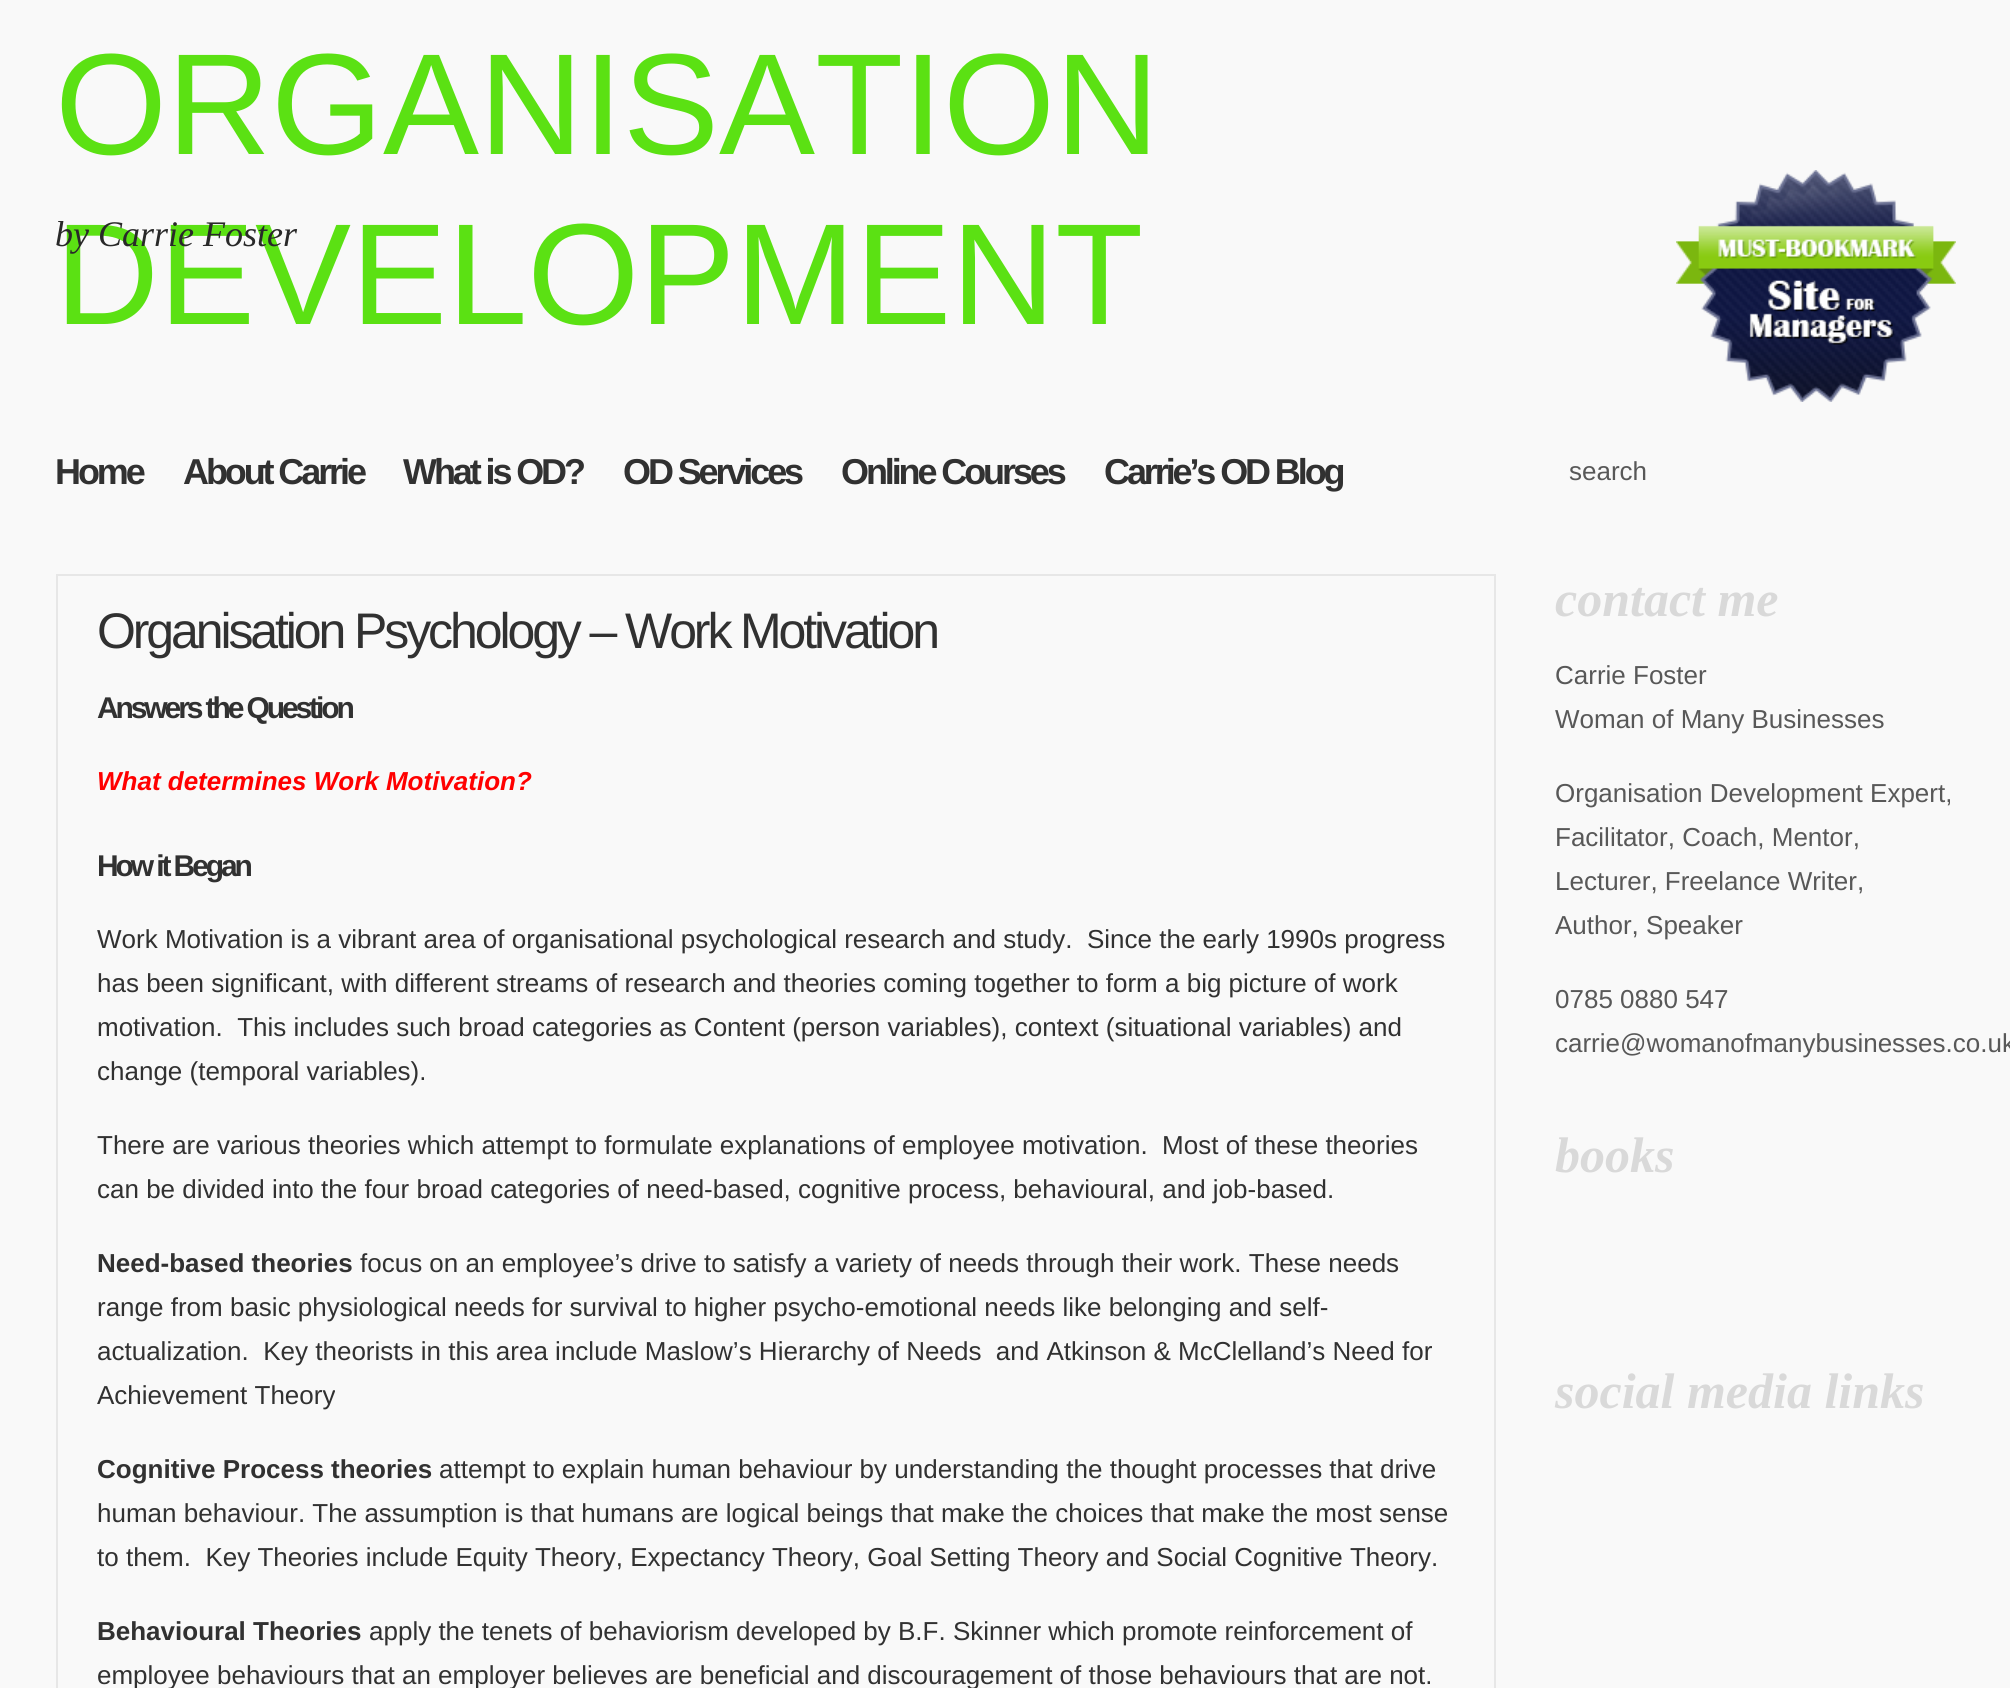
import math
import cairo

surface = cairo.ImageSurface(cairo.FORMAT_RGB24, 2010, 1688)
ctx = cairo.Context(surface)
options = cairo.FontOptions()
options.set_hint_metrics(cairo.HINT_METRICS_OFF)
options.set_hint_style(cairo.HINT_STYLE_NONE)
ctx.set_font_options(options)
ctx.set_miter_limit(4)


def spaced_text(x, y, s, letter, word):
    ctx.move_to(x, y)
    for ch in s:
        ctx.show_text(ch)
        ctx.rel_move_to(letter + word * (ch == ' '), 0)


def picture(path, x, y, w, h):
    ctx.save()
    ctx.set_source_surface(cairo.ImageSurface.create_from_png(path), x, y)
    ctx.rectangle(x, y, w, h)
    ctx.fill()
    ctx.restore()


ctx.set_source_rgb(0.973, 0.973, 0.973)
ctx.paint()
ctx.select_font_face("Liberation Sans")
ctx.set_font_size(144)
ctx.set_source_rgb(0.357, 0.882, 0.075)
ctx.move_to(55, 154)
ctx.show_text("ORGANISATION")
ctx.move_to(55, 324)
ctx.show_text("DEVELOPMENT")
picture("img1.png", 1676, 170, 280, 232)
ctx.select_font_face("Liberation Serif", cairo.FONT_SLANT_ITALIC)
ctx.set_font_size(36)
ctx.set_source_rgb(0.161, 0.161, 0.161)
ctx.move_to(55, 246)
ctx.show_text("by Carrie Foster")
ctx.select_font_face("Liberation Sans", cairo.FONT_SLANT_NORMAL, cairo.FONT_WEIGHT_BOLD)
ctx.set_source_rgb(0.192, 0.192, 0.192)
spaced_text(55, 484, "Home", -3.1, 0)
spaced_text(183, 484, "About Carrie", -3.1, 0)
spaced_text(403, 484, "What is OD?", -3.1, 0)
spaced_text(623, 484, "OD Services", -3.1, 0)
spaced_text(841, 484, "Online Courses", -3.1, 0)
spaced_text(1104, 484, "Carrie’s OD Blog", -3.1, 0)
ctx.select_font_face("Liberation Sans")
ctx.set_font_size(26)
ctx.set_source_rgb(0.345, 0.345, 0.345)
ctx.move_to(1569, 480)
ctx.show_text("search")
ctx.rectangle(57, 575, 1438, 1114)
ctx.set_source_rgb(0.906, 0.906, 0.906)
ctx.stroke()
ctx.set_font_size(50)
ctx.set_source_rgb(0.192, 0.192, 0.192)
spaced_text(97, 648, "Organisation Psychology – Work Motivation", -3.1, 0)
ctx.select_font_face("Liberation Sans", cairo.FONT_SLANT_NORMAL, cairo.FONT_WEIGHT_BOLD)
ctx.set_font_size(30)
spaced_text(97, 718, "Answers the Question", -3.1, 0)
ctx.select_font_face("Liberation Sans", cairo.FONT_SLANT_ITALIC, cairo.FONT_WEIGHT_BOLD)
ctx.set_font_size(26)
ctx.set_source_rgb(1, 0, 0)
ctx.move_to(97, 790)
ctx.show_text("What determines Work Motivation?")
ctx.select_font_face("Liberation Sans", cairo.FONT_SLANT_NORMAL, cairo.FONT_WEIGHT_BOLD)
ctx.set_font_size(30)
ctx.set_source_rgb(0.192, 0.192, 0.192)
spaced_text(97, 876, "How it Began", -3.1, 0)
ctx.select_font_face("Liberation Sans")
ctx.set_font_size(26)
ctx.move_to(97, 948)
ctx.show_text("Work Motivation is a vibrant area of organisational psychological research and study.  Since the early 1990s progress")
ctx.move_to(97, 992)
ctx.show_text("has been significant, with different streams of research and theories coming together to form a big picture of work")
ctx.move_to(97, 1036)
ctx.show_text("motivation.  This includes such broad categories as Content (person variables), context (situational variables) and")
ctx.move_to(97, 1080)
ctx.show_text("change (temporal variables).")
ctx.move_to(97, 1154)
ctx.show_text("There are various theories which attempt to formulate explanations of employee motivation.  Most of these theories")
ctx.move_to(97, 1198)
ctx.show_text("can be divided into the four broad categories of need-based, cognitive process, behavioural, and job-based.")
ctx.select_font_face("Liberation Sans", cairo.FONT_SLANT_NORMAL, cairo.FONT_WEIGHT_BOLD)
ctx.move_to(97, 1272)
ctx.show_text("Need-based theories")
ctx.select_font_face("Liberation Sans")
ctx.move_to(360, 1272)
ctx.show_text("focus on an employee’s drive to satisfy a variety of needs through their work. These needs")
ctx.move_to(97, 1316)
ctx.show_text("range from basic physiological needs for survival to higher psycho-emotional needs like belonging and self-")
ctx.move_to(97, 1360)
ctx.show_text("actualization.  Key theorists in this area include Maslow’s Hierarchy of Needs  and Atkinson & McClelland’s Need for")
ctx.move_to(97, 1404)
ctx.show_text("Achievement Theory")
ctx.select_font_face("Liberation Sans", cairo.FONT_SLANT_NORMAL, cairo.FONT_WEIGHT_BOLD)
ctx.move_to(97, 1478)
ctx.show_text("Cognitive Process theories")
ctx.select_font_face("Liberation Sans")
ctx.move_to(439, 1478)
ctx.show_text("attempt to explain human behaviour by understanding the thought processes that drive")
ctx.move_to(97, 1522)
ctx.show_text("human behaviour. The assumption is that humans are logical beings that make the choices that make the most sense")
ctx.move_to(97, 1566)
ctx.show_text("to them.  Key Theories include Equity Theory, Expectancy Theory, Goal Setting Theory and Social Cognitive Theory.")
ctx.select_font_face("Liberation Sans", cairo.FONT_SLANT_NORMAL, cairo.FONT_WEIGHT_BOLD)
ctx.move_to(97, 1640)
ctx.show_text("Behavioural Theories")
ctx.select_font_face("Liberation Sans")
ctx.move_to(369, 1640)
ctx.show_text("apply the tenets of behaviorism developed by B.F. Skinner which promote reinforcement of")
ctx.move_to(97, 1684)
ctx.show_text("employee behaviours that an employer believes are beneficial and discouragement of those behaviours that are not.")
ctx.select_font_face("Liberation Serif", cairo.FONT_SLANT_ITALIC, cairo.FONT_WEIGHT_BOLD)
ctx.set_font_size(50)
ctx.set_source_rgb(0.851, 0.851, 0.851)
ctx.move_to(1555, 616)
ctx.show_text("contact me")
ctx.select_font_face("Liberation Sans")
ctx.set_font_size(26)
ctx.set_source_rgb(0.345, 0.345, 0.345)
ctx.move_to(1555, 684)
ctx.show_text("Carrie Foster")
ctx.move_to(1555, 728)
ctx.show_text("Woman of Many Businesses")
ctx.move_to(1555, 802)
ctx.show_text("Organisation Development Expert,")
ctx.move_to(1555, 846)
ctx.show_text("Facilitator, Coach, Mentor,")
ctx.move_to(1555, 890)
ctx.show_text("Lecturer, Freelance Writer,")
ctx.move_to(1555, 934)
ctx.show_text("Author, Speaker")
ctx.move_to(1555, 1008)
ctx.show_text("0785 0880 547")
ctx.move_to(1555, 1052)
ctx.show_text("carrie@womanofmanybusinesses.co.uk")
ctx.select_font_face("Liberation Serif", cairo.FONT_SLANT_ITALIC, cairo.FONT_WEIGHT_BOLD)
ctx.set_font_size(50)
ctx.set_source_rgb(0.851, 0.851, 0.851)
ctx.move_to(1555, 1172)
ctx.show_text("books")
ctx.move_to(1555, 1408)
ctx.show_text("social media links")
surface.write_to_png("page.png")
